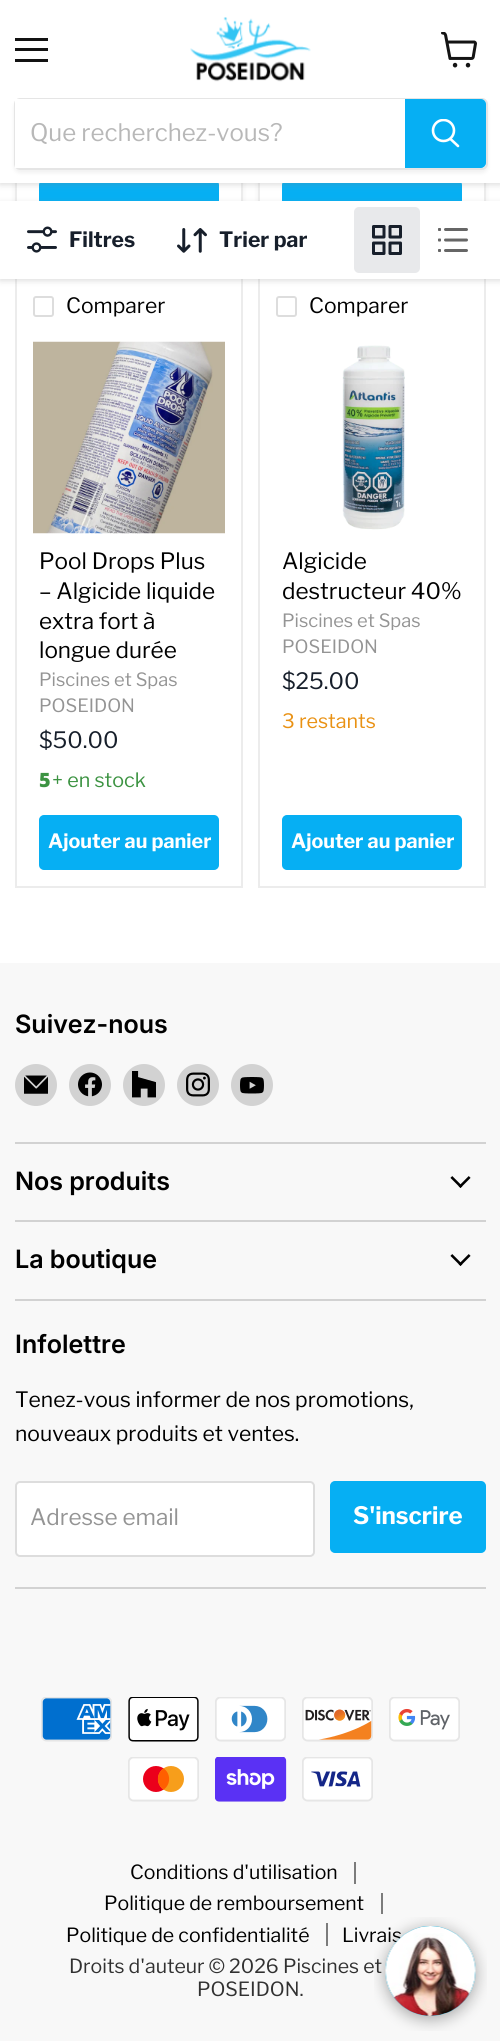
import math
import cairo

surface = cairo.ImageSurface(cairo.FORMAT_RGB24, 500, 2041)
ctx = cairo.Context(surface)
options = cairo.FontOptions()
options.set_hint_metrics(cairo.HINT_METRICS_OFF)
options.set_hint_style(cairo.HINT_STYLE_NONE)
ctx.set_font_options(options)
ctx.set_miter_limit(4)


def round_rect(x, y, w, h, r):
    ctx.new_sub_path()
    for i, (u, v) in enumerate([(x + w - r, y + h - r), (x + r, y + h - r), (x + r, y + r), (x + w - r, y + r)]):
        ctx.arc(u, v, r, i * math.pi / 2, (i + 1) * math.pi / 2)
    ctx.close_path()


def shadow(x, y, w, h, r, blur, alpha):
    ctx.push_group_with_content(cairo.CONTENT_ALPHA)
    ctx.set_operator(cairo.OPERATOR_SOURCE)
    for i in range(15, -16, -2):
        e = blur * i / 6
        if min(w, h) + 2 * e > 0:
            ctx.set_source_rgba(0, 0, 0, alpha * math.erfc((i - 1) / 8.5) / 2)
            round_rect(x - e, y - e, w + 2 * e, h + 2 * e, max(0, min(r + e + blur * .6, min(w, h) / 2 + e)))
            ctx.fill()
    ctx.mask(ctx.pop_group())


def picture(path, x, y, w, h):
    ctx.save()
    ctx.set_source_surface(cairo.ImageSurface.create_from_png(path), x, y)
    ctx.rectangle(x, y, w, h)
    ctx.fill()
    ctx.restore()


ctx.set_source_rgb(1, 1, 1)
ctx.paint()
ctx.set_source_rgb(0.502, 0.502, 0.502)
shadow(15, -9, 228, 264, 0, 3, 0.11)
ctx.set_source_rgb(1, 1, 1)
ctx.rectangle(17, 183, 224, 18)
ctx.fill()
ctx.rectangle(16, -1, 226, 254)
ctx.set_source_rgb(0.922, 0.922, 0.922)
ctx.stroke()
ctx.set_source_rgb(0.024, 0.686, 0.953)
round_rect(40, 181, 178, 54, 4)
ctx.fill_preserve()
ctx.stroke()
ctx.set_source_rgb(0.502, 0.502, 0.502)
shadow(258, -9, 228, 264, 0, 3, 0.11)
ctx.set_source_rgb(1, 1, 1)
ctx.rectangle(260, 183, 224, 18)
ctx.fill()
ctx.rectangle(259, -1, 226, 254)
ctx.set_source_rgb(0.922, 0.922, 0.922)
ctx.stroke()
ctx.set_source_rgb(0.024, 0.686, 0.953)
round_rect(283, 181, 178, 54, 4)
ctx.fill_preserve()
ctx.stroke()
ctx.set_source_rgb(0.502, 0.502, 0.502)
shadow(0, 2, 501, 183, 0, 3, 0.25)
ctx.set_source_rgb(1, 1, 1)
ctx.rectangle(0, 0, 500, 183)
ctx.fill()
ctx.set_source_rgb(0.078, 0.078, 0.078)
ctx.rectangle(15, 38, 33, 3)
ctx.fill()
ctx.rectangle(15, 48, 33, 3)
ctx.fill()
ctx.rectangle(15, 59, 33, 3)
ctx.fill()
picture("img1.png", 441, 32, 36, 36)
picture("img2.png", 190, 17, 121, 65)
ctx.save()
ctx.set_fill_rule(cairo.FILL_RULE_EVEN_ODD)
ctx.new_path()
ctx.move_to(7, 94)
ctx.line_to(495, 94)
ctx.line_to(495, 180)
ctx.line_to(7, 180)
ctx.close_path()
ctx.move_to(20, 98)
ctx.line_to(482, 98)
ctx.curve_to(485.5, 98, 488, 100.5, 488, 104)
ctx.line_to(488, 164)
ctx.curve_to(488, 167.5, 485.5, 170, 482, 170)
ctx.line_to(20, 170)
ctx.curve_to(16.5, 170, 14, 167.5, 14, 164)
ctx.line_to(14, 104)
ctx.curve_to(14, 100.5, 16.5, 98, 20, 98)
ctx.close_path()
ctx.clip()
ctx.set_source_rgb(0.502, 0.502, 0.502)
shadow(14, 101, 474, 72, 6, 2, 0.11)
ctx.restore()
round_rect(15, 99, 472, 70, 5)
ctx.set_source_rgba(0.502, 0.502, 0.502, 0.2)
ctx.stroke()
ctx.set_source_rgb(1, 1, 1)
ctx.rectangle(15, 99, 390, 69)
ctx.fill()
ctx.select_font_face("Libre Franklin")
ctx.set_font_size(24)
ctx.set_source_rgb(0.722, 0.722, 0.722)
ctx.move_to(30, 141)
ctx.show_text("Que recherchez-vous?")
ctx.set_source_rgb(0.024, 0.686, 0.953)
ctx.new_path()
ctx.move_to(406, 100)
ctx.line_to(481, 100)
ctx.curve_to(483, 100, 485, 102, 485, 104)
ctx.line_to(485, 163)
ctx.curve_to(485, 165, 483, 167, 481, 167)
ctx.line_to(406, 167)
ctx.close_path()
ctx.fill_preserve()
ctx.stroke()
ctx.new_path()
ctx.move_to(458, 146)
ctx.line_to(450.5, 139)
ctx.set_source_rgb(1, 1, 1)
ctx.set_line_width(2.6)
ctx.set_line_cap(cairo.LINE_CAP_ROUND)
ctx.stroke()
ctx.save()
ctx.rectangle(431, 119, 30, 31)
ctx.clip()
ctx.arc(443.5, 130.5, 10.5, 0, 2 * math.pi)
ctx.set_line_cap(cairo.LINE_CAP_BUTT)
ctx.stroke()
ctx.restore()
ctx.rectangle(16, 270, 226, 617)
ctx.set_source_rgb(0.922, 0.922, 0.922)
ctx.set_line_width(2)
ctx.set_line_cap(cairo.LINE_CAP_BUTT)
ctx.stroke()
ctx.rectangle(259, 270, 226, 617)
ctx.stroke()
ctx.set_source_rgb(0.502, 0.502, 0.502)
shadow(0, 203, 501, 78, 0, 3, 0.25)
ctx.set_source_rgb(1, 1, 1)
ctx.rectangle(0, 201, 500, 78)
ctx.fill()
picture("img3.png", 27, 226, 30, 27)
ctx.select_font_face("Libre Franklin", cairo.FONT_SLANT_NORMAL, cairo.FONT_WEIGHT_BOLD)
ctx.set_font_size(21.1)
ctx.set_source_rgb(0.09, 0.122, 0.169)
ctx.move_to(69, 247)
ctx.show_text("Filtres")
picture("img4.png", 177, 228, 30, 25)
ctx.move_to(219, 247)
ctx.show_text("Trier par")
ctx.set_source_rgb(0.91, 0.914, 0.918)
round_rect(354, 207, 66, 66, 5)
ctx.fill()
picture("img5.png", 372, 225, 30, 30)
picture("img6.png", 438, 228, 30, 24)
round_rect(34, 297, 19, 19, 2)
ctx.set_source_rgb(0.867, 0.867, 0.867)
ctx.stroke()
ctx.select_font_face("Libre Franklin")
ctx.set_source_rgb(0, 0, 0)
ctx.move_to(66, 313)
ctx.show_text("Comparer")
picture("img7.png", 33, 341, 192, 193)
ctx.set_font_size(22.5)
ctx.move_to(39, 569)
ctx.show_text("Pool Drops Plus")
ctx.move_to(39, 599)
ctx.show_text("– Algicide liquide")
ctx.move_to(39, 629)
ctx.show_text("extra fort à")
ctx.move_to(39, 658)
ctx.show_text("longue durée")
ctx.set_font_size(18.25)
ctx.set_source_rgb(0.58, 0.58, 0.58)
ctx.move_to(39, 686)
ctx.show_text("Piscines et Spas")
ctx.move_to(39, 712)
ctx.show_text("POSEIDON")
ctx.set_font_size(22.5)
ctx.set_source_rgb(0.09, 0.122, 0.169)
ctx.move_to(39, 748)
ctx.show_text("$50.00")
ctx.select_font_face("Noto Sans Black")
ctx.set_font_size(19.75)
ctx.set_source_rgb(0.235, 0.576, 0.259)
ctx.move_to(39, 787)
ctx.show_text("5")
ctx.select_font_face("Libre Franklin")
ctx.move_to(52, 787)
ctx.show_text("+ en stock")
ctx.set_source_rgb(0.024, 0.686, 0.953)
round_rect(40, 816, 178, 53, 4)
ctx.fill_preserve()
ctx.stroke()
ctx.select_font_face("Libre Franklin", cairo.FONT_SLANT_NORMAL, cairo.FONT_WEIGHT_BOLD)
ctx.set_source_rgb(1, 1, 1)
ctx.move_to(48, 848)
ctx.show_text("Ajouter au panier")
round_rect(277, 297, 19, 19, 2)
ctx.set_source_rgb(0.867, 0.867, 0.867)
ctx.stroke()
ctx.select_font_face("Libre Franklin")
ctx.set_font_size(21.1)
ctx.set_source_rgb(0, 0, 0)
ctx.move_to(309, 313)
ctx.show_text("Comparer")
picture("img8.png", 342, 345, 63, 185)
ctx.set_font_size(22.5)
ctx.move_to(282, 569)
ctx.show_text("Algicide")
ctx.move_to(282, 599)
ctx.show_text("destructeur 40%")
ctx.set_font_size(18.25)
ctx.set_source_rgb(0.58, 0.58, 0.58)
ctx.move_to(282, 627)
ctx.show_text("Piscines et Spas")
ctx.move_to(282, 653)
ctx.show_text("POSEIDON")
ctx.set_font_size(22.5)
ctx.set_source_rgb(0.09, 0.122, 0.169)
ctx.move_to(282, 689)
ctx.show_text("$25.00")
ctx.set_font_size(19.75)
ctx.set_source_rgb(0.914, 0.569, 0.078)
ctx.move_to(282, 728)
ctx.show_text("3 restants")
ctx.set_source_rgb(0.024, 0.686, 0.953)
round_rect(283, 816, 178, 53, 4)
ctx.fill_preserve()
ctx.stroke()
ctx.select_font_face("Libre Franklin", cairo.FONT_SLANT_NORMAL, cairo.FONT_WEIGHT_BOLD)
ctx.set_source_rgb(1, 1, 1)
ctx.move_to(291, 848)
ctx.show_text("Ajouter au panier")
ctx.set_source_rgb(0.969, 0.969, 0.969)
ctx.rectangle(0, 963, 500, 1078)
ctx.fill()
ctx.set_source_rgb(0.824, 0.824, 0.824)
ctx.rectangle(15, 1142, 471, 2)
ctx.fill()
ctx.select_font_face("Inter SemiBold")
ctx.set_font_size(25.25)
ctx.set_source_rgb(0, 0, 0)
ctx.move_to(15, 1033)
ctx.show_text("Suivez-nous")
ctx.set_source_rgb(0.824, 0.824, 0.824)
ctx.new_path()
ctx.arc(36, 1085, 21, 0, 2 * math.pi)
ctx.fill()
picture("img9.png", 24, 1075, 24, 19)
ctx.arc(90, 1085, 21, 0, 2 * math.pi)
ctx.fill()
picture("img10.png", 78, 1072, 24, 25)
ctx.arc(144, 1085, 21, 0, 2 * math.pi)
ctx.fill()
picture("img11.png", 132, 1071, 24, 27)
ctx.arc(198, 1085, 21, 0, 2 * math.pi)
ctx.fill()
picture("img12.png", 186, 1072, 24, 25)
ctx.arc(252, 1085, 21, 0, 2 * math.pi)
ctx.fill()
picture("img13.png", 240, 1077, 24, 17)
ctx.rectangle(15, 1220, 471, 2)
ctx.fill()
ctx.set_source_rgb(0, 0, 0)
ctx.move_to(15, 1190)
ctx.show_text("Nos produits")
picture("img14.png", 450, 1176, 21, 12)
ctx.set_source_rgb(0.824, 0.824, 0.824)
ctx.rectangle(15, 1299, 471, 2)
ctx.fill()
ctx.set_source_rgb(0, 0, 0)
ctx.move_to(15, 1268)
ctx.show_text("La boutique")
picture("img14.png", 450, 1254, 21, 12)
ctx.set_source_rgb(0.824, 0.824, 0.824)
ctx.rectangle(15, 1587, 471, 2)
ctx.fill()
ctx.set_source_rgb(0, 0, 0)
ctx.move_to(15, 1353)
ctx.show_text("Infolettre")
ctx.select_font_face("Libre Franklin")
ctx.set_font_size(21.1)
ctx.move_to(15, 1407)
ctx.show_text("Tenez-vous informer de nos promotions,")
ctx.move_to(15, 1441)
ctx.show_text("nouveaux produits et ventes.")
ctx.set_source_rgb(1, 1, 1)
round_rect(16, 1482, 298, 74, 4)
ctx.fill_preserve()
ctx.set_source_rgb(0.867, 0.867, 0.867)
ctx.stroke()
ctx.set_font_size(22.5)
ctx.set_source_rgb(0.58, 0.58, 0.58)
ctx.move_to(30, 1525)
ctx.show_text("Adresse email")
ctx.set_source_rgb(0.024, 0.686, 0.953)
round_rect(331, 1482, 154, 70, 4)
ctx.fill_preserve()
ctx.stroke()
ctx.select_font_face("Libre Franklin", cairo.FONT_SLANT_NORMAL, cairo.FONT_WEIGHT_BOLD)
ctx.set_font_size(24)
ctx.set_source_rgb(1, 1, 1)
ctx.move_to(353, 1524)
ctx.show_text("S'inscrire")
picture("img15.png", 41, 1697, 71, 45)
picture("img16.png", 128, 1697, 71, 45)
picture("img17.png", 215, 1697, 71, 45)
picture("img18.png", 302, 1697, 71, 45)
picture("img19.png", 389, 1697, 71, 45)
picture("img20.png", 128, 1757, 71, 45)
picture("img21.png", 215, 1757, 72, 45)
picture("img22.png", 302, 1757, 71, 45)
ctx.set_source_rgb(0.486, 0.486, 0.486)
ctx.rectangle(354, 1862, 2, 22)
ctx.fill()
ctx.select_font_face("Libre Franklin")
ctx.set_font_size(19.5)
ctx.set_source_rgb(0, 0, 0)
ctx.move_to(130, 1879)
ctx.show_text("Conditions d'utilisation")
ctx.set_source_rgb(0.486, 0.486, 0.486)
ctx.rectangle(381, 1893, 2, 21)
ctx.fill()
ctx.set_source_rgb(0, 0, 0)
ctx.move_to(104, 1910)
ctx.show_text("Politique de remboursement")
ctx.set_source_rgb(0.486, 0.486, 0.486)
ctx.rectangle(326, 1923, 2, 23)
ctx.fill()
ctx.set_source_rgb(0, 0, 0)
ctx.move_to(66, 1942)
ctx.show_text("Politique de confidentialité")
ctx.move_to(342, 1942)
ctx.show_text("Livrais")
ctx.set_source_rgb(0.192, 0.192, 0.192)
ctx.move_to(69, 1973)
ctx.show_text("Droits d'auteur © 2026 Piscines et")
ctx.move_to(197, 1996)
ctx.show_text("POSEIDON.")
picture("img23.png", 374, 1917, 113, 114)
surface.write_to_png("page.png")
